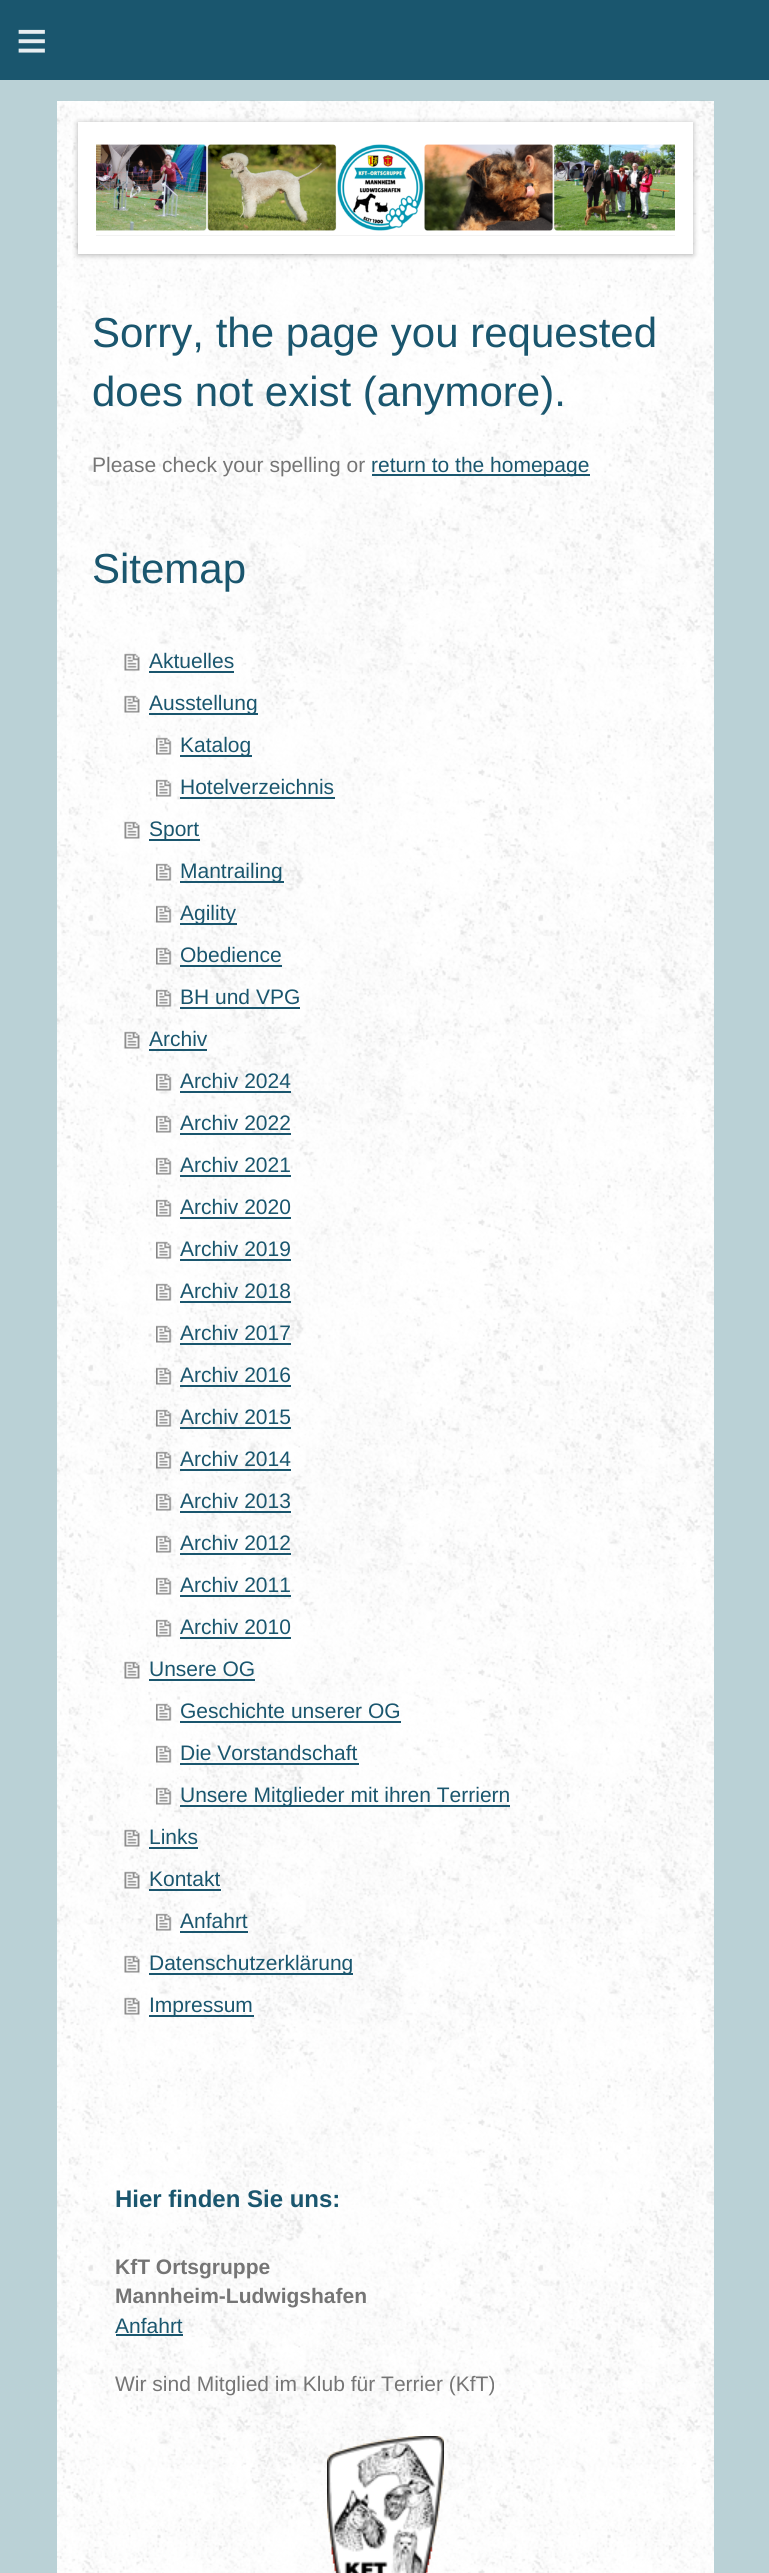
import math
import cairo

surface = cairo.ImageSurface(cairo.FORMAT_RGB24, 769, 2573)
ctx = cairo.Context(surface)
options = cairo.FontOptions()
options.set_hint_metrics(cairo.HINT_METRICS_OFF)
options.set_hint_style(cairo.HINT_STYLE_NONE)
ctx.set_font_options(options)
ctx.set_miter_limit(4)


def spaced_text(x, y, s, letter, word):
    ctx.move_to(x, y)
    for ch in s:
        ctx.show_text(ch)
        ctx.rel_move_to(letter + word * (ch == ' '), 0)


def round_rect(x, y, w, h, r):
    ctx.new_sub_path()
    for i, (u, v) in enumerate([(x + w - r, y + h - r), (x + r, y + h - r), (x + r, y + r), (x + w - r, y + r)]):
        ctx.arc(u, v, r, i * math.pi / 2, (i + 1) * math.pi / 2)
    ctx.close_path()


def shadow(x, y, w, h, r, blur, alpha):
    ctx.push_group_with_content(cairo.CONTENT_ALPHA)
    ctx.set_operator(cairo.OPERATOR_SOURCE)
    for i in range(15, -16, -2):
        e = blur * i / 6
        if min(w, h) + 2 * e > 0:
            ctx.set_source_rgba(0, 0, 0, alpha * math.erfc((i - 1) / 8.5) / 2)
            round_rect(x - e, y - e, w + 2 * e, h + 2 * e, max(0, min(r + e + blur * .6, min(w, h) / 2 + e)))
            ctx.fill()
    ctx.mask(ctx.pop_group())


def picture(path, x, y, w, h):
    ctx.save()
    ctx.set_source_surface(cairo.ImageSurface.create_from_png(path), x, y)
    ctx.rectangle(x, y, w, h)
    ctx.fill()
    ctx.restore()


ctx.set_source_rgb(0.729, 0.82, 0.839)
ctx.paint()
ctx.set_source_rgb(0.102, 0.337, 0.431)
ctx.rectangle(0, 0, 769, 80)
ctx.fill()
ctx.select_font_face("Liberation Sans")
ctx.set_font_size(54)
ctx.set_source_rgb(0.91, 0.933, 0.945)
spaced_text(16, 59, "≡", 16, 0)
ctx.set_source_rgb(1, 1, 1)
ctx.rectangle(57, 101, 657, 2472)
ctx.fill()
picture("img1.png", 57, 100, 657, 2473)
ctx.set_source_rgb(0, 0, 0)
shadow(78, 123, 615, 132, 0, 3, 0.3)
ctx.rectangle(87, 131, 597, 114)
ctx.set_source_rgb(1, 1, 1)
ctx.set_line_width(18)
ctx.stroke()
ctx.set_source_rgb(0.933, 0.933, 0.933)
ctx.rectangle(96, 235, 579, 1)
ctx.fill()
picture("img2.png", 96, 140, 579, 96)
ctx.set_font_size(42)
ctx.set_source_rgb(0.102, 0.337, 0.431)
ctx.move_to(92, 347)
ctx.show_text("Sorry, the page you requested")
ctx.move_to(92, 406)
ctx.show_text("does not exist (anymore).")
ctx.set_font_size(21)
ctx.set_source_rgb(0.459, 0.459, 0.459)
ctx.move_to(92, 472)
ctx.show_text("Please check your spelling or")
ctx.set_source_rgb(0.102, 0.337, 0.431)
ctx.rectangle(372, 474, 218, 2)
ctx.fill()
ctx.move_to(371, 472)
ctx.show_text("return to the homepage")
ctx.set_font_size(42)
ctx.move_to(92, 583)
ctx.show_text("Sitemap")
picture("img3.png", 124, 653, 16, 18)
ctx.set_font_size(21)
ctx.move_to(149, 668)
ctx.show_text("Aktuelles")
ctx.rectangle(149, 671, 85, 2)
ctx.fill()
picture("img4.png", 124, 695, 16, 18)
ctx.rectangle(149, 713, 109, 2)
ctx.fill()
ctx.move_to(149, 710)
ctx.show_text("Ausstellung")
picture("img5.png", 156, 737, 16, 18)
ctx.rectangle(180, 755, 72, 2)
ctx.fill()
ctx.move_to(180, 752)
ctx.show_text("Katalog")
picture("img6.png", 156, 779, 16, 18)
ctx.move_to(180, 794)
ctx.show_text("Hotelverzeichnis")
ctx.rectangle(180, 797, 155, 2)
ctx.fill()
picture("img7.png", 124, 821, 16, 18)
ctx.rectangle(149, 839, 51, 2)
ctx.fill()
ctx.move_to(149, 836)
ctx.show_text("Sport")
picture("img8.png", 156, 863, 16, 18)
ctx.rectangle(180, 881, 104, 2)
ctx.fill()
ctx.move_to(180, 878)
ctx.show_text("Mantrailing")
picture("img9.png", 156, 905, 16, 18)
ctx.rectangle(180, 923, 57, 2)
ctx.fill()
ctx.move_to(180, 920)
ctx.show_text("Agility")
picture("img10.png", 156, 947, 16, 18)
ctx.move_to(180, 962)
ctx.show_text("Obedience")
ctx.rectangle(180, 965, 102, 2)
ctx.fill()
picture("img11.png", 156, 989, 16, 18)
ctx.move_to(180, 1004)
ctx.show_text("BH und VPG")
ctx.rectangle(180, 1007, 120, 2)
ctx.fill()
picture("img12.png", 124, 1031, 16, 18)
ctx.move_to(149, 1046)
ctx.show_text("Archiv")
ctx.rectangle(149, 1049, 58, 2)
ctx.fill()
picture("img13.png", 156, 1073, 16, 18)
ctx.move_to(180, 1088)
ctx.show_text("Archiv 2024")
ctx.rectangle(180, 1091, 111, 2)
ctx.fill()
picture("img14.png", 156, 1115, 16, 18)
ctx.move_to(180, 1130)
ctx.show_text("Archiv 2022")
ctx.rectangle(180, 1133, 111, 2)
ctx.fill()
picture("img15.png", 156, 1157, 16, 18)
ctx.move_to(180, 1172)
ctx.show_text("Archiv 2021")
ctx.rectangle(180, 1175, 111, 2)
ctx.fill()
picture("img16.png", 156, 1199, 16, 18)
ctx.move_to(180, 1214)
ctx.show_text("Archiv 2020")
ctx.rectangle(180, 1217, 111, 2)
ctx.fill()
picture("img17.png", 156, 1241, 16, 18)
ctx.move_to(180, 1256)
ctx.show_text("Archiv 2019")
ctx.rectangle(180, 1259, 111, 2)
ctx.fill()
picture("img18.png", 156, 1283, 16, 18)
ctx.move_to(180, 1298)
ctx.show_text("Archiv 2018")
ctx.rectangle(180, 1301, 111, 2)
ctx.fill()
picture("img19.png", 156, 1325, 16, 18)
ctx.move_to(180, 1340)
ctx.show_text("Archiv 2017")
ctx.rectangle(180, 1343, 111, 2)
ctx.fill()
picture("img20.png", 156, 1367, 16, 18)
ctx.move_to(180, 1382)
ctx.show_text("Archiv 2016")
ctx.rectangle(180, 1385, 111, 2)
ctx.fill()
picture("img21.png", 156, 1409, 16, 18)
ctx.move_to(180, 1424)
ctx.show_text("Archiv 2015")
ctx.rectangle(180, 1427, 111, 2)
ctx.fill()
picture("img22.png", 156, 1451, 16, 18)
ctx.move_to(180, 1466)
ctx.show_text("Archiv 2014")
ctx.rectangle(180, 1469, 111, 2)
ctx.fill()
picture("img23.png", 156, 1493, 16, 18)
ctx.move_to(180, 1508)
ctx.show_text("Archiv 2013")
ctx.rectangle(180, 1511, 111, 2)
ctx.fill()
picture("img24.png", 156, 1535, 16, 18)
ctx.move_to(180, 1550)
ctx.show_text("Archiv 2012")
ctx.rectangle(180, 1553, 111, 2)
ctx.fill()
picture("img25.png", 156, 1577, 16, 18)
ctx.move_to(180, 1592)
ctx.show_text("Archiv 2011")
ctx.rectangle(180, 1595, 111, 2)
ctx.fill()
picture("img26.png", 156, 1619, 16, 18)
ctx.move_to(180, 1634)
ctx.show_text("Archiv 2010")
ctx.rectangle(180, 1637, 111, 2)
ctx.fill()
picture("img27.png", 124, 1661, 16, 18)
ctx.move_to(149, 1676)
ctx.show_text("Unsere OG")
ctx.rectangle(149, 1679, 106, 2)
ctx.fill()
picture("img28.png", 156, 1703, 16, 18)
ctx.move_to(180, 1718)
ctx.show_text("Geschichte unserer OG")
ctx.rectangle(180, 1721, 221, 2)
ctx.fill()
picture("img29.png", 156, 1745, 16, 18)
ctx.move_to(180, 1760)
ctx.show_text("Die Vorstandschaft")
ctx.rectangle(180, 1763, 179, 2)
ctx.fill()
picture("img30.png", 156, 1787, 16, 18)
ctx.rectangle(180, 1805, 330, 2)
ctx.fill()
ctx.move_to(180, 1802)
ctx.show_text("Unsere Mitglieder mit ihren Terriern")
picture("img31.png", 124, 1829, 16, 18)
ctx.move_to(149, 1844)
ctx.show_text("Links")
ctx.rectangle(149, 1847, 49, 2)
ctx.fill()
picture("img32.png", 124, 1871, 16, 18)
ctx.move_to(149, 1886)
ctx.show_text("Kontakt")
ctx.rectangle(149, 1889, 72, 2)
ctx.fill()
picture("img33.png", 156, 1913, 16, 18)
ctx.move_to(180, 1928)
ctx.show_text("Anfahrt")
ctx.rectangle(180, 1931, 68, 2)
ctx.fill()
picture("img34.png", 124, 1955, 16, 18)
ctx.rectangle(149, 1973, 204, 2)
ctx.fill()
ctx.move_to(149, 1970)
ctx.show_text("Datenschutzerklärung")
picture("img35.png", 124, 1997, 16, 18)
ctx.rectangle(149, 2015, 105, 2)
ctx.fill()
ctx.move_to(149, 2012)
ctx.show_text("Impressum")
ctx.select_font_face("Liberation Sans", cairo.FONT_SLANT_NORMAL, cairo.FONT_WEIGHT_BOLD)
ctx.set_font_size(24)
ctx.move_to(115, 2207)
ctx.show_text("Hier finden Sie uns:")
ctx.set_font_size(21)
ctx.set_source_rgb(0.459, 0.459, 0.459)
ctx.move_to(115, 2274)
ctx.show_text("KfT Ortsgruppe")
ctx.move_to(115, 2303)
ctx.show_text("Mannheim-Ludwigshafen")
ctx.select_font_face("Liberation Sans")
ctx.set_source_rgb(0.102, 0.337, 0.431)
ctx.move_to(115, 2333)
ctx.show_text("Anfahrt")
ctx.rectangle(116, 2334, 67, 2)
ctx.fill()
ctx.set_source_rgb(0.459, 0.459, 0.459)
ctx.move_to(115, 2391)
ctx.show_text("Wir sind Mitglied im Klub für Terrier (KfT)")
picture("img36.png", 327, 2436, 117, 137)
surface.write_to_png("page.png")
